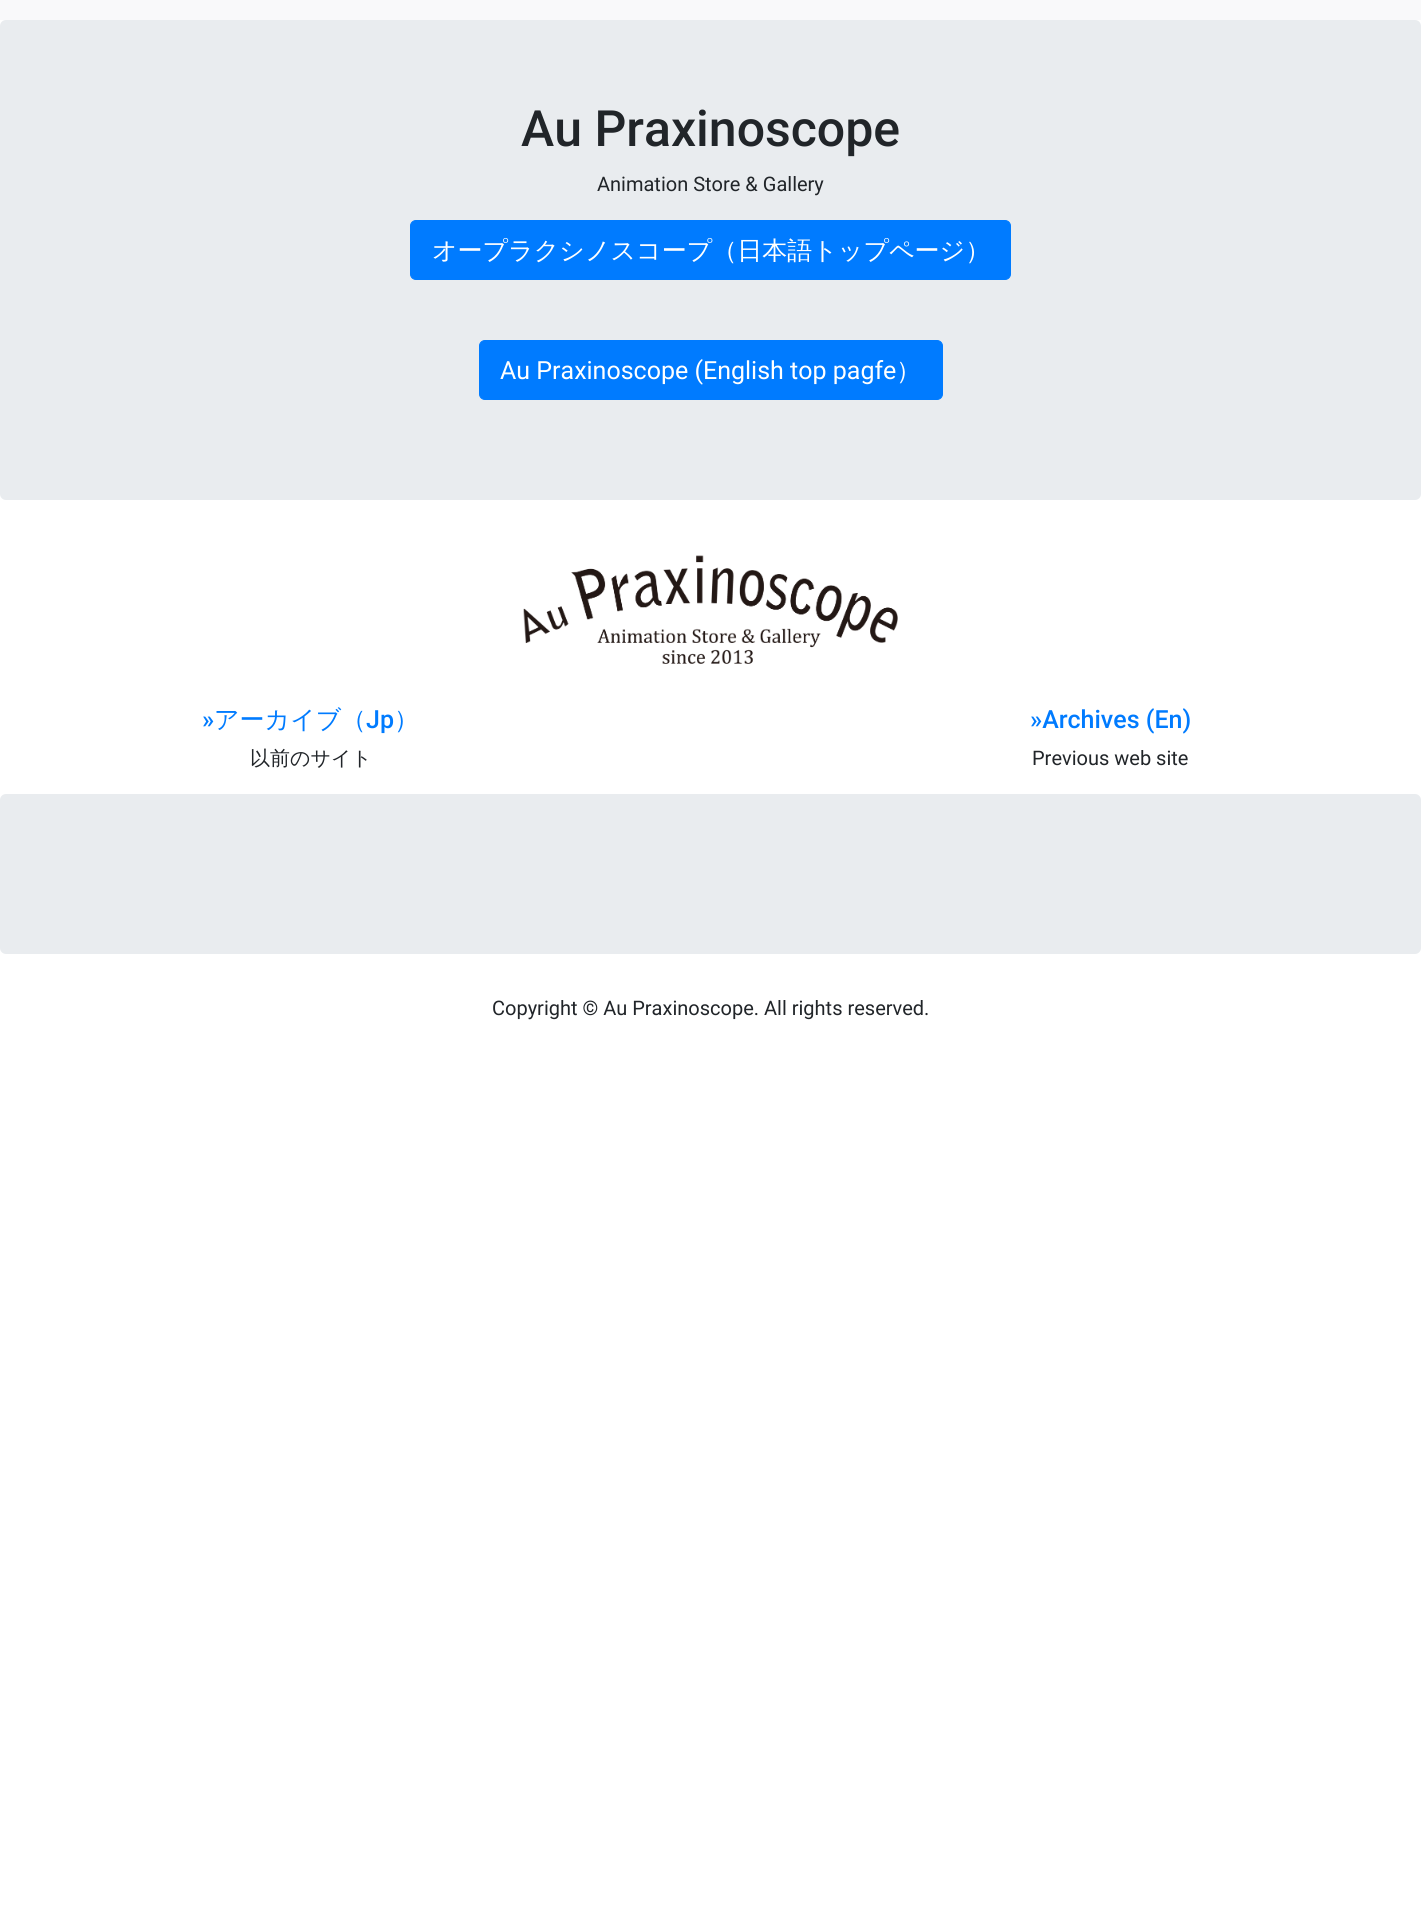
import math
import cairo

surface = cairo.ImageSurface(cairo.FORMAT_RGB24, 1421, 1905)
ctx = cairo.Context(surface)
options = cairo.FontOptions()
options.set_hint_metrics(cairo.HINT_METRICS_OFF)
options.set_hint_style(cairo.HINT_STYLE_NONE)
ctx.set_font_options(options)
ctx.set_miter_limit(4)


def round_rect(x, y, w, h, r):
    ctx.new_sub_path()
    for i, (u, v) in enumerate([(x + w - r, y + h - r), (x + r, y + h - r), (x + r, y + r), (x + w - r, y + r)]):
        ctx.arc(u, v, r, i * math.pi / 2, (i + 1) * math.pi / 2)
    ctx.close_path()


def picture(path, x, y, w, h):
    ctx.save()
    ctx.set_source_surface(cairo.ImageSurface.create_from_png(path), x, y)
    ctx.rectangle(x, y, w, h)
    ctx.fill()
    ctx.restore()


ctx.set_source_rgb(1, 1, 1)
ctx.paint()
ctx.set_source_rgb(0.973, 0.976, 0.98)
ctx.rectangle(0, 0, 1421, 20)
ctx.fill()
ctx.set_source_rgb(0.914, 0.925, 0.937)
round_rect(0, 20, 1421, 480, 6)
ctx.fill()
ctx.select_font_face("Roboto Medium")
ctx.set_font_size(50)
ctx.set_source_rgb(0.129, 0.145, 0.161)
ctx.move_to(521, 146)
ctx.show_text("Au Praxinoscope")
ctx.select_font_face("Roboto")
ctx.set_font_size(20)
ctx.move_to(597, 191)
ctx.show_text("Animation Store & Gallery")
ctx.set_source_rgb(0, 0.482, 1)
round_rect(410.5, 220.5, 600, 59, 5.5)
ctx.fill_preserve()
ctx.set_line_width(1)
ctx.stroke()
ctx.select_font_face("WenQuanYi Zen Hei Medium")
ctx.set_font_size(25)
ctx.set_source_rgb(1, 1, 1)
ctx.move_to(432, 259)
ctx.show_text("オープラクシノスコープ（日本語トップページ）")
ctx.set_source_rgb(0, 0.482, 1)
round_rect(479.5, 340.5, 463, 59, 5.5)
ctx.fill_preserve()
ctx.stroke()
ctx.select_font_face("Roboto")
ctx.set_source_rgb(1, 1, 1)
ctx.move_to(500, 379)
ctx.show_text("Au Praxinoscope (English top pagfe")
ctx.select_font_face("WenQuanYi Zen Hei Medium")
ctx.move_to(896, 379)
ctx.show_text("）")
picture("img1.png", 523, 555, 375, 109)
ctx.select_font_face("Roboto Medium")
ctx.set_source_rgb(0, 0.482, 1)
ctx.move_to(202, 728)
ctx.show_text("»")
ctx.select_font_face("WenQuanYi Zen Hei Medium")
ctx.move_to(214, 728)
ctx.show_text("アーカイブ（")
ctx.select_font_face("Roboto Medium")
ctx.move_to(366, 728)
ctx.show_text("Jp")
ctx.select_font_face("WenQuanYi Zen Hei Medium")
ctx.move_to(394, 728)
ctx.show_text("）")
ctx.set_font_size(20)
ctx.set_source_rgb(0.129, 0.145, 0.161)
ctx.move_to(250, 765)
ctx.show_text("以前のサイト")
ctx.select_font_face("Roboto Medium")
ctx.set_font_size(25)
ctx.set_source_rgb(0, 0.482, 1)
ctx.move_to(1030, 728)
ctx.show_text("»Archives (En)")
ctx.select_font_face("Roboto")
ctx.set_font_size(20)
ctx.set_source_rgb(0.129, 0.145, 0.161)
ctx.move_to(1032, 765)
ctx.show_text("Previous web site")
ctx.set_source_rgb(0.914, 0.925, 0.937)
round_rect(0, 794, 1421, 160, 6)
ctx.fill()
ctx.set_source_rgb(0.129, 0.145, 0.161)
ctx.move_to(492, 1015)
ctx.show_text("Copyright © Au Praxinoscope. All rights reserved.")
surface.write_to_png("page.png")
